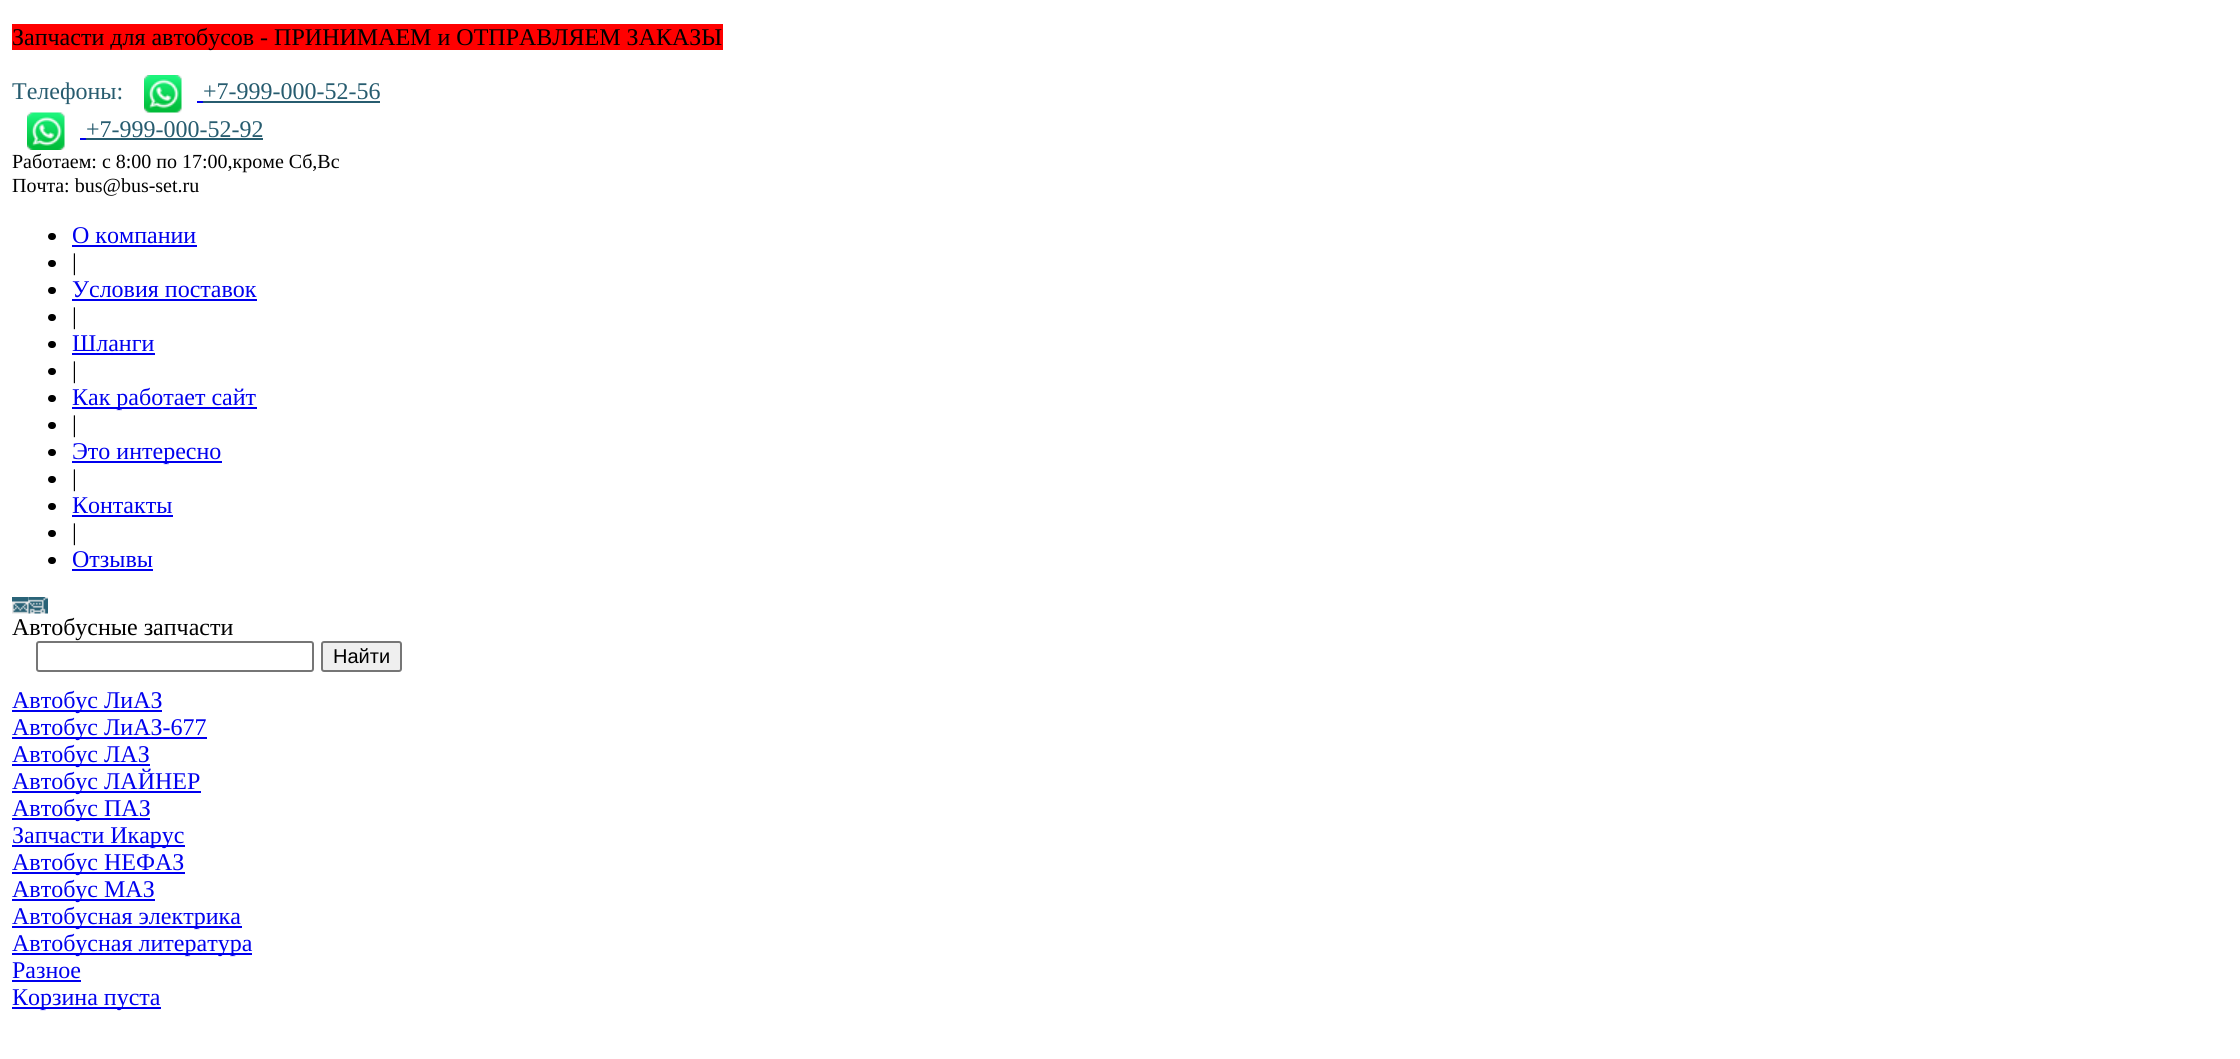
import math
import cairo

surface = cairo.ImageSurface(cairo.FORMAT_RGB24, 2240, 1059)
ctx = cairo.Context(surface)
options = cairo.FontOptions()
options.set_hint_metrics(cairo.HINT_METRICS_OFF)
options.set_hint_style(cairo.HINT_STYLE_NONE)
ctx.set_font_options(options)
ctx.set_miter_limit(4)


def round_rect(x, y, w, h, r):
    ctx.new_sub_path()
    for i, (u, v) in enumerate([(x + w - r, y + h - r), (x + r, y + h - r), (x + r, y + r), (x + w - r, y + r)]):
        ctx.arc(u, v, r, i * math.pi / 2, (i + 1) * math.pi / 2)
    ctx.close_path()


def picture(path, x, y, w, h):
    ctx.save()
    ctx.set_source_surface(cairo.ImageSurface.create_from_png(path), x, y)
    ctx.rectangle(x, y, w, h)
    ctx.fill()
    ctx.restore()


ctx.set_source_rgb(1, 1, 1)
ctx.paint()
ctx.set_source_rgb(1, 0, 0)
ctx.rectangle(12, 24, 711, 26)
ctx.fill()
ctx.select_font_face("Liberation Serif")
ctx.set_font_size(24)
ctx.set_source_rgb(0, 0, 0)
ctx.move_to(12, 45)
ctx.show_text("Запчасти для автобусов - ПРИНИМАЕМ и ОТПРАВЛЯЕМ ЗАКАЗЫ")
ctx.set_source_rgb(0.153, 0.361, 0.435)
ctx.move_to(12, 99)
ctx.show_text("Телефоны:")
picture("img1.png", 144, 75, 38, 38)
ctx.move_to(203, 99)
ctx.show_text("+7-999-000-52-56")
ctx.set_source_rgb(0, 0, 0.933)
ctx.rectangle(197, 101, 6, 2)
ctx.fill()
ctx.set_source_rgb(0.153, 0.361, 0.435)
ctx.rectangle(203, 101, 177, 2)
ctx.fill()
picture("img2.png", 27, 112, 38, 38)
ctx.move_to(86, 137)
ctx.show_text("+7-999-000-52-92")
ctx.set_source_rgb(0, 0, 0.933)
ctx.rectangle(80, 138, 6, 2)
ctx.fill()
ctx.set_source_rgb(0.153, 0.361, 0.435)
ctx.rectangle(86, 138, 177, 2)
ctx.fill()
ctx.set_font_size(20)
ctx.set_source_rgb(0, 0, 0)
ctx.move_to(12, 168)
ctx.show_text("Работаем: с 8:00 по 17:00,кроме Сб,Вс")
ctx.move_to(12, 192)
ctx.show_text("Почта: bus@bus-set.ru")
round_rect(48, 233, 8, 7, 3.5)
ctx.fill()
ctx.set_font_size(24)
ctx.set_source_rgb(0, 0, 0.933)
ctx.move_to(72, 243)
ctx.show_text("О компании")
ctx.rectangle(72, 245, 125, 2)
ctx.fill()
ctx.set_source_rgb(0, 0, 0)
round_rect(48, 260, 8, 7, 3.5)
ctx.fill()
ctx.move_to(72, 270)
ctx.show_text("|")
round_rect(48, 287, 8, 7, 3.5)
ctx.fill()
ctx.set_source_rgb(0, 0, 0.933)
ctx.move_to(72, 297)
ctx.show_text("Условия поставок")
ctx.rectangle(72, 299, 185, 2)
ctx.fill()
ctx.set_source_rgb(0, 0, 0)
round_rect(48, 314, 8, 7, 3.5)
ctx.fill()
ctx.move_to(72, 324)
ctx.show_text("|")
round_rect(48, 341, 8, 7, 3.5)
ctx.fill()
ctx.set_source_rgb(0, 0, 0.933)
ctx.move_to(72, 351)
ctx.show_text("Шланги")
ctx.rectangle(72, 353, 83, 2)
ctx.fill()
ctx.set_source_rgb(0, 0, 0)
round_rect(48, 368, 8, 7, 3.5)
ctx.fill()
ctx.move_to(72, 378)
ctx.show_text("|")
round_rect(48, 395, 8, 7, 3.5)
ctx.fill()
ctx.set_source_rgb(0, 0, 0.933)
ctx.rectangle(72, 407, 185, 2)
ctx.fill()
ctx.move_to(72, 405)
ctx.show_text("Как работает сайт")
ctx.set_source_rgb(0, 0, 0)
round_rect(48, 422, 8, 7, 3.5)
ctx.fill()
ctx.move_to(72, 432)
ctx.show_text("|")
round_rect(48, 449, 8, 7, 3.5)
ctx.fill()
ctx.set_source_rgb(0, 0, 0.933)
ctx.rectangle(72, 461, 150, 2)
ctx.fill()
ctx.move_to(72, 459)
ctx.show_text("Это интересно")
ctx.set_source_rgb(0, 0, 0)
round_rect(48, 476, 8, 7, 3.5)
ctx.fill()
ctx.move_to(72, 486)
ctx.show_text("|")
round_rect(48, 503, 8, 7, 3.5)
ctx.fill()
ctx.set_source_rgb(0, 0, 0.933)
ctx.move_to(72, 513)
ctx.show_text("Контакты")
ctx.rectangle(72, 515, 101, 2)
ctx.fill()
ctx.set_source_rgb(0, 0, 0)
round_rect(48, 530, 8, 7, 3.5)
ctx.fill()
ctx.move_to(72, 540)
ctx.show_text("|")
round_rect(48, 557, 8, 7, 3.5)
ctx.fill()
ctx.set_source_rgb(0, 0, 0.933)
ctx.move_to(72, 567)
ctx.show_text("Отзывы")
ctx.rectangle(72, 569, 81, 2)
ctx.fill()
picture("img3.png", 12, 597, 17, 17)
picture("img4.png", 28, 597, 20, 17)
ctx.set_source_rgb(0, 0, 0)
ctx.move_to(12, 635)
ctx.show_text("Автобусные запчасти")
round_rect(37, 642, 276, 29, 2)
ctx.set_source_rgb(0.463, 0.463, 0.463)
ctx.stroke()
ctx.set_source_rgb(0.937, 0.937, 0.937)
round_rect(322, 642, 79, 29, 2)
ctx.fill_preserve()
ctx.set_source_rgb(0.463, 0.463, 0.463)
ctx.stroke()
ctx.select_font_face("Liberation Sans")
ctx.set_font_size(20)
ctx.set_source_rgb(0, 0, 0)
ctx.move_to(333, 663)
ctx.show_text("Найти")
ctx.set_source_rgb(0, 0, 0.933)
ctx.rectangle(12, 710, 150, 2)
ctx.fill()
ctx.select_font_face("Liberation Serif")
ctx.set_font_size(24)
ctx.move_to(12, 708)
ctx.show_text("Автобус ЛиАЗ")
ctx.rectangle(12, 737, 195, 2)
ctx.fill()
ctx.move_to(12, 735)
ctx.show_text("Автобус ЛиАЗ-677")
ctx.rectangle(12, 764, 138, 2)
ctx.fill()
ctx.move_to(12, 762)
ctx.show_text("Автобус ЛАЗ")
ctx.rectangle(12, 791, 189, 2)
ctx.fill()
ctx.move_to(12, 789)
ctx.show_text("Автобус ЛАЙНЕР")
ctx.rectangle(12, 818, 138, 2)
ctx.fill()
ctx.move_to(12, 816)
ctx.show_text("Автобус ПАЗ")
ctx.rectangle(12, 845, 173, 2)
ctx.fill()
ctx.move_to(12, 843)
ctx.show_text("Запчасти Икарус")
ctx.rectangle(12, 872, 173, 2)
ctx.fill()
ctx.move_to(12, 870)
ctx.show_text("Автобус НЕФАЗ")
ctx.rectangle(12, 899, 143, 2)
ctx.fill()
ctx.move_to(12, 897)
ctx.show_text("Автобус МАЗ")
ctx.rectangle(12, 926, 230, 2)
ctx.fill()
ctx.move_to(12, 924)
ctx.show_text("Автобусная электрика")
ctx.rectangle(12, 953, 240, 2)
ctx.fill()
ctx.move_to(12, 951)
ctx.show_text("Автобусная литература")
ctx.move_to(12, 978)
ctx.show_text("Разное")
ctx.rectangle(12, 980, 69, 2)
ctx.fill()
ctx.rectangle(12, 1007, 149, 2)
ctx.fill()
ctx.move_to(12, 1005)
ctx.show_text("Корзина пуста")
surface.write_to_png("page.png")
